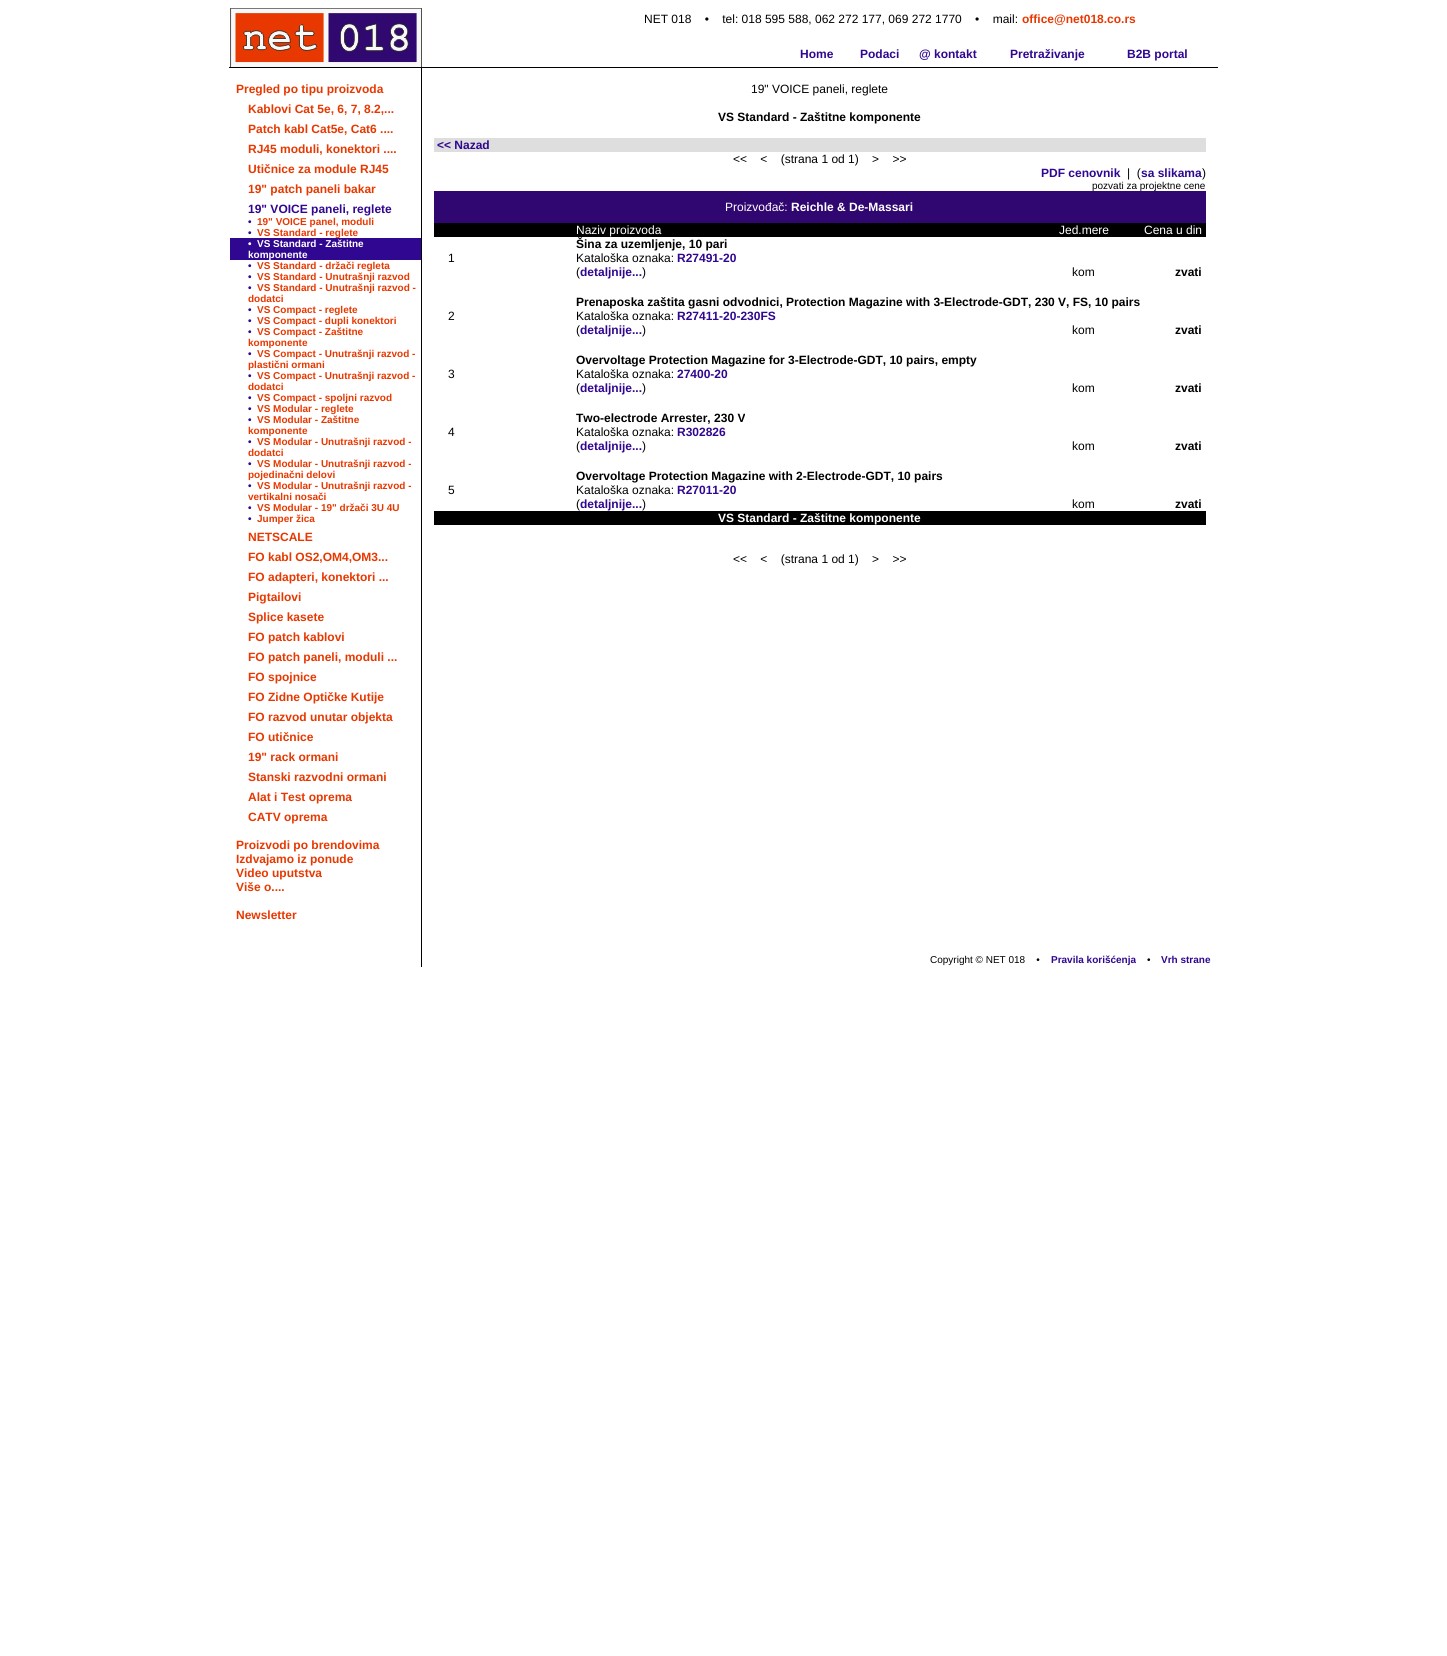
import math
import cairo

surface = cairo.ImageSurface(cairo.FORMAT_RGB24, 1447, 1656)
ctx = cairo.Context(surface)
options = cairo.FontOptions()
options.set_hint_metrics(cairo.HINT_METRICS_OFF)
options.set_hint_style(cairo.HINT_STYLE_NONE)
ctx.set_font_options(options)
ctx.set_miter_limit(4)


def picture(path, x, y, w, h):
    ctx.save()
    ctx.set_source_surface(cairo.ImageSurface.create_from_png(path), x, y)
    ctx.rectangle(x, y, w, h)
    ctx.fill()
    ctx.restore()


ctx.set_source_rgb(1, 1, 1)
ctx.paint()
picture("img1.png", 230, 8, 192, 59)
ctx.set_source_rgb(0, 0, 0)
ctx.rectangle(229, 67, 989, 1)
ctx.fill()
ctx.select_font_face("Liberation Sans")
ctx.set_font_size(12)
ctx.move_to(644, 23)
ctx.show_text("NET 018    •    tel: 018 595 588, 062 272 177, 069 272 1770    •    mail:")
ctx.select_font_face("Liberation Sans", cairo.FONT_SLANT_NORMAL, cairo.FONT_WEIGHT_BOLD)
ctx.set_source_rgb(0.91, 0.22, 0)
ctx.move_to(1022, 23)
ctx.show_text("office@net018.co.rs")
ctx.set_source_rgb(0.188, 0.031, 0.565)
ctx.move_to(800, 58)
ctx.show_text("Home")
ctx.move_to(860, 58)
ctx.show_text("Podaci")
ctx.move_to(919, 58)
ctx.show_text("@ kontakt")
ctx.move_to(1010, 58)
ctx.show_text("Pretraživanje")
ctx.move_to(1127, 58)
ctx.show_text("B2B portal")
ctx.set_source_rgb(0.91, 0.22, 0)
ctx.move_to(236, 93)
ctx.show_text("Pregled po tipu proizvoda")
ctx.move_to(248, 113)
ctx.show_text("Kablovi Cat 5e, 6, 7, 8.2,...")
ctx.move_to(248, 133)
ctx.show_text("Patch kabl Cat5e, Cat6 ....")
ctx.move_to(248, 153)
ctx.show_text("RJ45 moduli, konektori ....")
ctx.move_to(248, 173)
ctx.show_text("Utičnice za module RJ45")
ctx.move_to(248, 193)
ctx.show_text("19\" patch paneli bakar")
ctx.set_source_rgb(0.188, 0.031, 0.565)
ctx.move_to(248, 213)
ctx.show_text("19\" VOICE paneli, reglete")
ctx.set_font_size(10)
ctx.move_to(248, 225)
ctx.show_text("•")
ctx.set_source_rgb(0.91, 0.22, 0)
ctx.move_to(257, 225)
ctx.show_text("19\" VOICE panel, moduli")
ctx.set_source_rgb(0.188, 0.031, 0.565)
ctx.move_to(248, 236)
ctx.show_text("•")
ctx.rectangle(230, 238, 191, 22)
ctx.fill()
ctx.set_source_rgb(0.91, 0.22, 0)
ctx.move_to(257, 236)
ctx.show_text("VS Standard - reglete")
ctx.set_source_rgb(1, 1, 1)
ctx.move_to(248, 247)
ctx.show_text("•")
ctx.move_to(257, 247)
ctx.show_text("VS Standard - Zaštitne")
ctx.move_to(248, 258)
ctx.show_text("komponente")
ctx.set_source_rgb(0.188, 0.031, 0.565)
ctx.move_to(248, 269)
ctx.show_text("•")
ctx.set_source_rgb(0.91, 0.22, 0)
ctx.move_to(257, 269)
ctx.show_text("VS Standard - držači regleta")
ctx.set_source_rgb(0.188, 0.031, 0.565)
ctx.move_to(248, 280)
ctx.show_text("•")
ctx.set_source_rgb(0.91, 0.22, 0)
ctx.move_to(257, 280)
ctx.show_text("VS Standard - Unutrašnji razvod")
ctx.set_source_rgb(0.188, 0.031, 0.565)
ctx.move_to(248, 291)
ctx.show_text("•")
ctx.set_source_rgb(0.91, 0.22, 0)
ctx.move_to(257, 291)
ctx.show_text("VS Standard - Unutrašnji razvod -")
ctx.move_to(248, 302)
ctx.show_text("dodatci")
ctx.set_source_rgb(0.188, 0.031, 0.565)
ctx.move_to(248, 313)
ctx.show_text("•")
ctx.set_source_rgb(0.91, 0.22, 0)
ctx.move_to(257, 313)
ctx.show_text("VS Compact - reglete")
ctx.set_source_rgb(0.188, 0.031, 0.565)
ctx.move_to(248, 324)
ctx.show_text("•")
ctx.set_source_rgb(0.91, 0.22, 0)
ctx.move_to(257, 324)
ctx.show_text("VS Compact - dupli konektori")
ctx.set_source_rgb(0.188, 0.031, 0.565)
ctx.move_to(248, 335)
ctx.show_text("•")
ctx.set_source_rgb(0.91, 0.22, 0)
ctx.move_to(257, 335)
ctx.show_text("VS Compact - Zaštitne")
ctx.move_to(248, 346)
ctx.show_text("komponente")
ctx.set_source_rgb(0.188, 0.031, 0.565)
ctx.move_to(248, 357)
ctx.show_text("•")
ctx.set_source_rgb(0.91, 0.22, 0)
ctx.move_to(257, 357)
ctx.show_text("VS Compact - Unutrašnji razvod -")
ctx.move_to(248, 368)
ctx.show_text("plastični ormani")
ctx.set_source_rgb(0.188, 0.031, 0.565)
ctx.move_to(248, 379)
ctx.show_text("•")
ctx.set_source_rgb(0.91, 0.22, 0)
ctx.move_to(257, 379)
ctx.show_text("VS Compact - Unutrašnji razvod -")
ctx.move_to(248, 390)
ctx.show_text("dodatci")
ctx.set_source_rgb(0.188, 0.031, 0.565)
ctx.move_to(248, 401)
ctx.show_text("•")
ctx.set_source_rgb(0.91, 0.22, 0)
ctx.move_to(257, 401)
ctx.show_text("VS Compact - spoljni razvod")
ctx.set_source_rgb(0.188, 0.031, 0.565)
ctx.move_to(248, 412)
ctx.show_text("•")
ctx.set_source_rgb(0.91, 0.22, 0)
ctx.move_to(257, 412)
ctx.show_text("VS Modular - reglete")
ctx.set_source_rgb(0.188, 0.031, 0.565)
ctx.move_to(248, 423)
ctx.show_text("•")
ctx.set_source_rgb(0.91, 0.22, 0)
ctx.move_to(257, 423)
ctx.show_text("VS Modular - Zaštitne")
ctx.move_to(248, 434)
ctx.show_text("komponente")
ctx.set_source_rgb(0.188, 0.031, 0.565)
ctx.move_to(248, 445)
ctx.show_text("•")
ctx.set_source_rgb(0.91, 0.22, 0)
ctx.move_to(257, 445)
ctx.show_text("VS Modular - Unutrašnji razvod -")
ctx.move_to(248, 456)
ctx.show_text("dodatci")
ctx.set_source_rgb(0.188, 0.031, 0.565)
ctx.move_to(248, 467)
ctx.show_text("•")
ctx.set_source_rgb(0.91, 0.22, 0)
ctx.move_to(257, 467)
ctx.show_text("VS Modular - Unutrašnji razvod -")
ctx.move_to(248, 478)
ctx.show_text("pojedinačni delovi")
ctx.set_source_rgb(0.188, 0.031, 0.565)
ctx.move_to(248, 489)
ctx.show_text("•")
ctx.set_source_rgb(0.91, 0.22, 0)
ctx.move_to(257, 489)
ctx.show_text("VS Modular - Unutrašnji razvod -")
ctx.move_to(248, 500)
ctx.show_text("vertikalni nosači")
ctx.set_source_rgb(0.188, 0.031, 0.565)
ctx.move_to(248, 511)
ctx.show_text("•")
ctx.set_source_rgb(0.91, 0.22, 0)
ctx.move_to(257, 511)
ctx.show_text("VS Modular - 19\" držači 3U 4U")
ctx.set_source_rgb(0.188, 0.031, 0.565)
ctx.move_to(248, 522)
ctx.show_text("•")
ctx.set_source_rgb(0.91, 0.22, 0)
ctx.move_to(257, 522)
ctx.show_text("Jumper žica")
ctx.set_font_size(12)
ctx.move_to(248, 541)
ctx.show_text("NETSCALE")
ctx.move_to(248, 561)
ctx.show_text("FO kabl OS2,OM4,OM3...")
ctx.move_to(248, 581)
ctx.show_text("FO adapteri, konektori ...")
ctx.move_to(248, 601)
ctx.show_text("Pigtailovi")
ctx.move_to(248, 621)
ctx.show_text("Splice kasete")
ctx.move_to(248, 641)
ctx.show_text("FO patch kablovi")
ctx.move_to(248, 661)
ctx.show_text("FO patch paneli, moduli ...")
ctx.move_to(248, 681)
ctx.show_text("FO spojnice")
ctx.move_to(248, 701)
ctx.show_text("FO Zidne Optičke Kutije")
ctx.move_to(248, 721)
ctx.show_text("FO razvod unutar objekta")
ctx.move_to(248, 741)
ctx.show_text("FO utičnice")
ctx.move_to(248, 761)
ctx.show_text("19\" rack ormani")
ctx.move_to(248, 781)
ctx.show_text("Stanski razvodni ormani")
ctx.move_to(248, 801)
ctx.show_text("Alat i Test oprema")
ctx.move_to(248, 821)
ctx.show_text("CATV oprema")
ctx.move_to(236, 849)
ctx.show_text("Proizvodi po brendovima")
ctx.move_to(236, 863)
ctx.show_text("Izdvajamo iz ponude")
ctx.move_to(236, 877)
ctx.show_text("Video uputstva")
ctx.move_to(236, 891)
ctx.show_text("Više o....")
ctx.move_to(236, 919)
ctx.show_text("Newsletter")
ctx.select_font_face("Liberation Sans")
ctx.set_source_rgb(0, 0, 0)
ctx.move_to(751, 93)
ctx.show_text("19\" VOICE paneli, reglete")
ctx.select_font_face("Liberation Sans", cairo.FONT_SLANT_NORMAL, cairo.FONT_WEIGHT_BOLD)
ctx.move_to(718, 121)
ctx.show_text("VS Standard - Zaštitne komponente")
ctx.set_source_rgb(0.871, 0.871, 0.871)
ctx.rectangle(434, 138, 772, 14)
ctx.fill()
ctx.set_source_rgb(0.188, 0.031, 0.565)
ctx.move_to(437, 149)
ctx.show_text("<< Nazad")
ctx.select_font_face("Liberation Sans")
ctx.set_source_rgb(0, 0, 0)
ctx.move_to(733, 163)
ctx.show_text("<<    <    (strana 1 od 1)    >    >>")
ctx.select_font_face("Liberation Sans", cairo.FONT_SLANT_NORMAL, cairo.FONT_WEIGHT_BOLD)
ctx.set_source_rgb(0.188, 0.031, 0.565)
ctx.move_to(1041, 177)
ctx.show_text("PDF cenovnik")
ctx.select_font_face("Liberation Sans")
ctx.set_source_rgb(0, 0, 0)
ctx.move_to(1127, 177)
ctx.show_text("|  (")
ctx.select_font_face("Liberation Sans", cairo.FONT_SLANT_NORMAL, cairo.FONT_WEIGHT_BOLD)
ctx.set_source_rgb(0.188, 0.031, 0.565)
ctx.move_to(1141, 177)
ctx.show_text("sa slikama")
ctx.select_font_face("Liberation Sans")
ctx.set_source_rgb(0, 0, 0)
ctx.move_to(1202, 177)
ctx.show_text(")")
ctx.set_source_rgb(0.188, 0.031, 0.439)
ctx.rectangle(434, 191, 772, 32)
ctx.fill()
ctx.set_font_size(10)
ctx.set_source_rgb(0, 0, 0)
ctx.move_to(1092, 189)
ctx.show_text("pozvati za projektne cene")
ctx.set_font_size(12)
ctx.set_source_rgb(1, 1, 1)
ctx.move_to(725, 211)
ctx.show_text("Proizvođač:")
ctx.select_font_face("Liberation Sans", cairo.FONT_SLANT_NORMAL, cairo.FONT_WEIGHT_BOLD)
ctx.move_to(791, 211)
ctx.show_text("Reichle & De-Massari")
ctx.set_source_rgb(0, 0, 0)
ctx.rectangle(434, 223, 772, 14)
ctx.fill()
ctx.select_font_face("Liberation Sans")
ctx.set_source_rgb(1, 1, 1)
ctx.move_to(576, 234)
ctx.show_text("Naziv proizvoda")
ctx.move_to(1059, 234)
ctx.show_text("Jed.mere")
ctx.move_to(1144, 234)
ctx.show_text("Cena u din")
ctx.set_source_rgb(0, 0, 0)
ctx.move_to(448, 262)
ctx.show_text("1")
ctx.select_font_face("Liberation Sans", cairo.FONT_SLANT_NORMAL, cairo.FONT_WEIGHT_BOLD)
ctx.move_to(576, 248)
ctx.show_text("Šina za uzemljenje, 10 pari")
ctx.select_font_face("Liberation Sans")
ctx.move_to(576, 262)
ctx.show_text("Kataloška oznaka:")
ctx.select_font_face("Liberation Sans", cairo.FONT_SLANT_NORMAL, cairo.FONT_WEIGHT_BOLD)
ctx.set_source_rgb(0.188, 0.031, 0.565)
ctx.move_to(677, 262)
ctx.show_text("R27491-20")
ctx.select_font_face("Liberation Sans")
ctx.set_source_rgb(0, 0, 0)
ctx.move_to(576, 276)
ctx.show_text("(")
ctx.select_font_face("Liberation Sans", cairo.FONT_SLANT_NORMAL, cairo.FONT_WEIGHT_BOLD)
ctx.set_source_rgb(0.188, 0.031, 0.565)
ctx.move_to(580, 276)
ctx.show_text("detaljnije...")
ctx.select_font_face("Liberation Sans")
ctx.set_source_rgb(0, 0, 0)
ctx.move_to(642, 276)
ctx.show_text(")")
ctx.move_to(1072, 276)
ctx.show_text("kom")
ctx.select_font_face("Liberation Sans", cairo.FONT_SLANT_NORMAL, cairo.FONT_WEIGHT_BOLD)
ctx.move_to(1175, 276)
ctx.show_text("zvati")
ctx.select_font_face("Liberation Sans")
ctx.move_to(448, 320)
ctx.show_text("2")
ctx.select_font_face("Liberation Sans", cairo.FONT_SLANT_NORMAL, cairo.FONT_WEIGHT_BOLD)
ctx.move_to(576, 306)
ctx.show_text("Prenaposka zaštita gasni odvodnici, Protection Magazine with 3-Electrode-GDT, 230 V, FS, 10 pairs")
ctx.select_font_face("Liberation Sans")
ctx.move_to(576, 320)
ctx.show_text("Kataloška oznaka:")
ctx.select_font_face("Liberation Sans", cairo.FONT_SLANT_NORMAL, cairo.FONT_WEIGHT_BOLD)
ctx.set_source_rgb(0.188, 0.031, 0.565)
ctx.move_to(677, 320)
ctx.show_text("R27411-20-230FS")
ctx.select_font_face("Liberation Sans")
ctx.set_source_rgb(0, 0, 0)
ctx.move_to(576, 334)
ctx.show_text("(")
ctx.select_font_face("Liberation Sans", cairo.FONT_SLANT_NORMAL, cairo.FONT_WEIGHT_BOLD)
ctx.set_source_rgb(0.188, 0.031, 0.565)
ctx.move_to(580, 334)
ctx.show_text("detaljnije...")
ctx.select_font_face("Liberation Sans")
ctx.set_source_rgb(0, 0, 0)
ctx.move_to(642, 334)
ctx.show_text(")")
ctx.move_to(1072, 334)
ctx.show_text("kom")
ctx.select_font_face("Liberation Sans", cairo.FONT_SLANT_NORMAL, cairo.FONT_WEIGHT_BOLD)
ctx.move_to(1175, 334)
ctx.show_text("zvati")
ctx.select_font_face("Liberation Sans")
ctx.move_to(448, 378)
ctx.show_text("3")
ctx.select_font_face("Liberation Sans", cairo.FONT_SLANT_NORMAL, cairo.FONT_WEIGHT_BOLD)
ctx.move_to(576, 364)
ctx.show_text("Overvoltage Protection Magazine for 3-Electrode-GDT, 10 pairs, empty")
ctx.select_font_face("Liberation Sans")
ctx.move_to(576, 378)
ctx.show_text("Kataloška oznaka:")
ctx.select_font_face("Liberation Sans", cairo.FONT_SLANT_NORMAL, cairo.FONT_WEIGHT_BOLD)
ctx.set_source_rgb(0.188, 0.031, 0.565)
ctx.move_to(677, 378)
ctx.show_text("27400-20")
ctx.select_font_face("Liberation Sans")
ctx.set_source_rgb(0, 0, 0)
ctx.move_to(576, 392)
ctx.show_text("(")
ctx.select_font_face("Liberation Sans", cairo.FONT_SLANT_NORMAL, cairo.FONT_WEIGHT_BOLD)
ctx.set_source_rgb(0.188, 0.031, 0.565)
ctx.move_to(580, 392)
ctx.show_text("detaljnije...")
ctx.select_font_face("Liberation Sans")
ctx.set_source_rgb(0, 0, 0)
ctx.move_to(642, 392)
ctx.show_text(")")
ctx.move_to(1072, 392)
ctx.show_text("kom")
ctx.select_font_face("Liberation Sans", cairo.FONT_SLANT_NORMAL, cairo.FONT_WEIGHT_BOLD)
ctx.move_to(1175, 392)
ctx.show_text("zvati")
ctx.select_font_face("Liberation Sans")
ctx.move_to(448, 436)
ctx.show_text("4")
ctx.select_font_face("Liberation Sans", cairo.FONT_SLANT_NORMAL, cairo.FONT_WEIGHT_BOLD)
ctx.move_to(576, 422)
ctx.show_text("Two-electrode Arrester, 230 V")
ctx.select_font_face("Liberation Sans")
ctx.move_to(576, 436)
ctx.show_text("Kataloška oznaka:")
ctx.select_font_face("Liberation Sans", cairo.FONT_SLANT_NORMAL, cairo.FONT_WEIGHT_BOLD)
ctx.set_source_rgb(0.188, 0.031, 0.565)
ctx.move_to(677, 436)
ctx.show_text("R302826")
ctx.select_font_face("Liberation Sans")
ctx.set_source_rgb(0, 0, 0)
ctx.move_to(576, 450)
ctx.show_text("(")
ctx.select_font_face("Liberation Sans", cairo.FONT_SLANT_NORMAL, cairo.FONT_WEIGHT_BOLD)
ctx.set_source_rgb(0.188, 0.031, 0.565)
ctx.move_to(580, 450)
ctx.show_text("detaljnije...")
ctx.select_font_face("Liberation Sans")
ctx.set_source_rgb(0, 0, 0)
ctx.move_to(642, 450)
ctx.show_text(")")
ctx.move_to(1072, 450)
ctx.show_text("kom")
ctx.select_font_face("Liberation Sans", cairo.FONT_SLANT_NORMAL, cairo.FONT_WEIGHT_BOLD)
ctx.move_to(1175, 450)
ctx.show_text("zvati")
ctx.select_font_face("Liberation Sans")
ctx.move_to(448, 494)
ctx.show_text("5")
ctx.select_font_face("Liberation Sans", cairo.FONT_SLANT_NORMAL, cairo.FONT_WEIGHT_BOLD)
ctx.move_to(576, 480)
ctx.show_text("Overvoltage Protection Magazine with 2-Electrode-GDT, 10 pairs")
ctx.select_font_face("Liberation Sans")
ctx.move_to(576, 494)
ctx.show_text("Kataloška oznaka:")
ctx.select_font_face("Liberation Sans", cairo.FONT_SLANT_NORMAL, cairo.FONT_WEIGHT_BOLD)
ctx.set_source_rgb(0.188, 0.031, 0.565)
ctx.move_to(677, 494)
ctx.show_text("R27011-20")
ctx.select_font_face("Liberation Sans")
ctx.set_source_rgb(0, 0, 0)
ctx.move_to(576, 508)
ctx.show_text("(")
ctx.select_font_face("Liberation Sans", cairo.FONT_SLANT_NORMAL, cairo.FONT_WEIGHT_BOLD)
ctx.set_source_rgb(0.188, 0.031, 0.565)
ctx.move_to(580, 508)
ctx.show_text("detaljnije...")
ctx.select_font_face("Liberation Sans")
ctx.set_source_rgb(0, 0, 0)
ctx.move_to(642, 508)
ctx.show_text(")")
ctx.move_to(1072, 508)
ctx.show_text("kom")
ctx.select_font_face("Liberation Sans", cairo.FONT_SLANT_NORMAL, cairo.FONT_WEIGHT_BOLD)
ctx.move_to(1175, 508)
ctx.show_text("zvati")
ctx.rectangle(434, 511, 772, 14)
ctx.fill()
ctx.set_source_rgb(1, 1, 1)
ctx.move_to(718, 522)
ctx.show_text("VS Standard - Zaštitne komponente")
ctx.select_font_face("Liberation Sans")
ctx.set_source_rgb(0, 0, 0)
ctx.move_to(733, 563)
ctx.show_text("<<    <    (strana 1 od 1)    >    >>")
ctx.rectangle(421, 68, 1, 899)
ctx.fill()
ctx.set_font_size(10)
ctx.move_to(930, 963)
ctx.show_text("Copyright © NET 018    •")
ctx.select_font_face("Liberation Sans", cairo.FONT_SLANT_NORMAL, cairo.FONT_WEIGHT_BOLD)
ctx.set_source_rgb(0.188, 0.031, 0.565)
ctx.move_to(1051, 963)
ctx.show_text("Pravila korišćenja")
ctx.select_font_face("Liberation Sans")
ctx.set_source_rgb(0, 0, 0)
ctx.move_to(1147, 963)
ctx.show_text("•")
ctx.select_font_face("Liberation Sans", cairo.FONT_SLANT_NORMAL, cairo.FONT_WEIGHT_BOLD)
ctx.set_source_rgb(0.188, 0.031, 0.565)
ctx.move_to(1161, 963)
ctx.show_text("Vrh strane")
surface.write_to_png("page.png")
